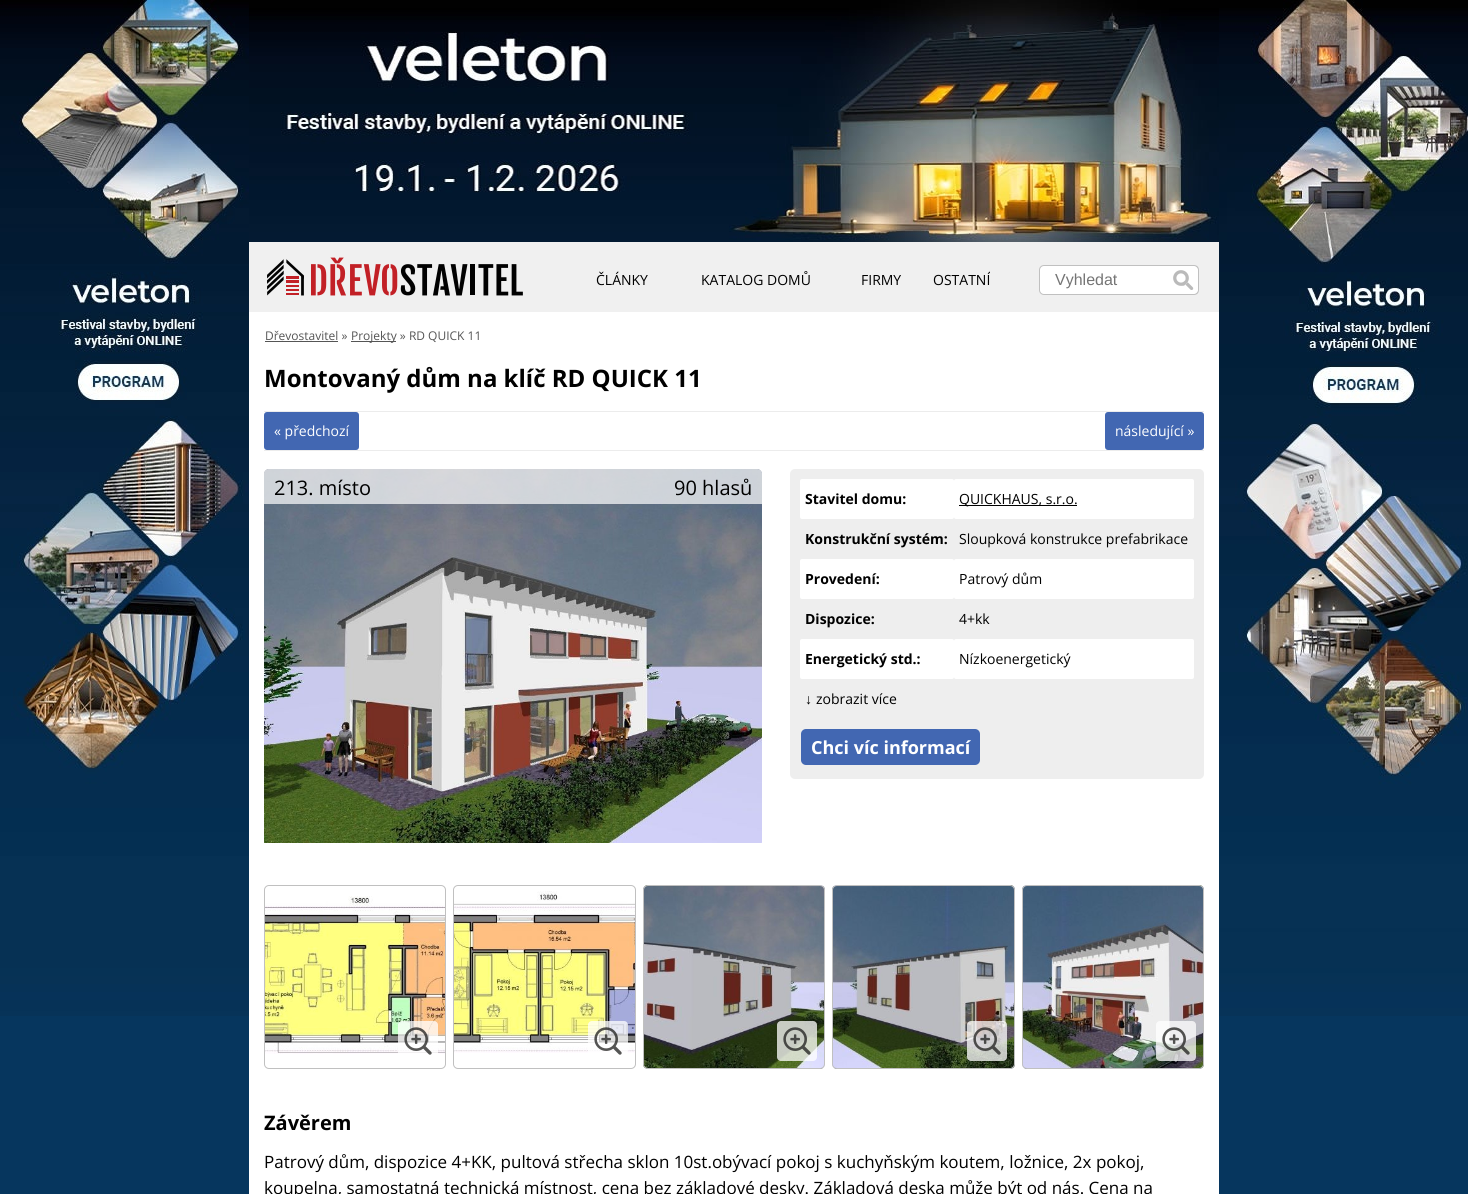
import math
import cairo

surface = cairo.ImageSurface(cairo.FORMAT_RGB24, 1468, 1194)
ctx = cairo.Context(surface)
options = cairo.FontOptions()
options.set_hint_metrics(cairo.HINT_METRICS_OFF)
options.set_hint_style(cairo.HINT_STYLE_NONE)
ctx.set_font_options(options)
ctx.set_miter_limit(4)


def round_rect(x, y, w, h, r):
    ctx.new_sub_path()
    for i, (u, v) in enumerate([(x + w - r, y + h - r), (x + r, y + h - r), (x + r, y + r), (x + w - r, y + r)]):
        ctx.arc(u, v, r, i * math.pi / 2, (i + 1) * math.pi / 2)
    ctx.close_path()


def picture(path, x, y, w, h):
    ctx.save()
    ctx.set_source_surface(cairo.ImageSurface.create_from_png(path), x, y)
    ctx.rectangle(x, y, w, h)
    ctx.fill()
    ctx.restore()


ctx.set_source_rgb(0.024, 0.212, 0.369)
ctx.paint()
picture("img1.png", 249, 0, 970, 242)
ctx.set_source_rgb(1, 1, 1)
ctx.rectangle(249, 312, 970, 882)
ctx.fill()
picture("img2.png", 0, 0, 249, 1016)
ctx.set_source_rgb(0.941, 0.941, 0.941)
ctx.rectangle(249, 242, 970, 70)
ctx.fill()
picture("img3.png", 267, 257, 256, 39)
ctx.select_font_face("Open Sans")
ctx.set_font_size(14)
ctx.set_source_rgb(0, 0, 0)
ctx.move_to(596, 285)
ctx.show_text("ČLÁNKY")
ctx.move_to(701, 285)
ctx.show_text("KATALOG DOMŮ")
ctx.move_to(861, 285)
ctx.show_text("FIRMY")
ctx.move_to(933, 285)
ctx.show_text("OSTATNÍ")
ctx.set_source_rgb(1, 1, 1)
ctx.new_path()
ctx.move_to(1044, 265.5)
ctx.line_to(1171.5, 265.5)
ctx.line_to(1171.5, 294.5)
ctx.line_to(1044, 294.5)
ctx.curve_to(1041.5, 294.5, 1039.5, 292.5, 1039.5, 290)
ctx.line_to(1039.5, 270)
ctx.curve_to(1039.5, 267.5, 1041.5, 265.5, 1044, 265.5)
ctx.close_path()
ctx.fill_preserve()
ctx.set_source_rgb(0.753, 0.753, 0.753)
ctx.set_line_width(1)
ctx.stroke()
ctx.select_font_face("Liberation Sans")
ctx.set_font_size(16)
ctx.set_source_rgb(0.459, 0.459, 0.459)
ctx.move_to(1055, 285)
ctx.show_text("Vyhledat")
ctx.set_source_rgb(1, 1, 1)
ctx.new_path()
ctx.move_to(1169, 265)
ctx.line_to(1194, 265)
ctx.curve_to(1197, 265, 1199, 267, 1199, 270)
ctx.line_to(1199, 290)
ctx.curve_to(1199, 293, 1197, 295, 1194, 295)
ctx.line_to(1169, 295)
ctx.close_path()
ctx.fill()
picture("img4.png", 1173, 270, 21, 20)
ctx.set_source_rgb(0.753, 0.753, 0.753)
ctx.set_fill_rule(cairo.FILL_RULE_EVEN_ODD)
ctx.new_path()
ctx.move_to(1169, 265)
ctx.line_to(1194, 265)
ctx.curve_to(1197, 265, 1199, 267, 1199, 270)
ctx.line_to(1199, 290)
ctx.curve_to(1199, 293, 1197, 295, 1194, 295)
ctx.line_to(1169, 295)
ctx.close_path()
ctx.move_to(1169, 266)
ctx.line_to(1194, 266)
ctx.curve_to(1196, 266, 1198, 268, 1198, 270)
ctx.line_to(1198, 290)
ctx.curve_to(1198, 292, 1196, 294, 1194, 294)
ctx.line_to(1169, 294)
ctx.close_path()
ctx.fill()
picture("img5.png", 1219, 0, 249, 1016)
ctx.select_font_face("Open Sans")
ctx.set_font_size(12)
ctx.set_source_rgb(0.333, 0.333, 0.333)
ctx.move_to(265, 340)
ctx.show_text("Dřevostavitel »")
ctx.rectangle(265, 341, 73, 1)
ctx.fill()
ctx.rectangle(351, 341, 45, 1)
ctx.fill()
ctx.move_to(351, 340)
ctx.show_text("Projekty » RD QUICK 11")
ctx.select_font_face("Open Sans", cairo.FONT_SLANT_NORMAL, cairo.FONT_WEIGHT_BOLD)
ctx.set_font_size(24)
ctx.set_source_rgb(0, 0, 0)
ctx.move_to(264, 387)
ctx.show_text("Montovaný dům na klíč RD QUICK 11")
ctx.set_source_rgb(0.925, 0.925, 0.925)
ctx.rectangle(264, 411, 940, 1)
ctx.fill()
ctx.set_source_rgb(0.259, 0.404, 0.698)
round_rect(264, 412, 95, 38, 3)
ctx.fill()
ctx.select_font_face("Open Sans")
ctx.set_font_size(14)
ctx.set_source_rgb(1, 1, 1)
ctx.move_to(274, 436)
ctx.show_text("« předchozí")
ctx.set_source_rgb(0.259, 0.404, 0.698)
round_rect(1105, 412, 99, 38, 3)
ctx.fill()
ctx.set_source_rgb(1, 1, 1)
ctx.move_to(1115, 436)
ctx.show_text("následující »")
ctx.set_source_rgb(0.925, 0.925, 0.925)
ctx.rectangle(264, 450, 940, 1)
ctx.fill()
picture("img6.png", 264, 469, 498, 374)
ctx.set_source_rgba(1, 1, 1, 0.7)
ctx.new_path()
ctx.move_to(269, 469)
ctx.line_to(757, 469)
ctx.curve_to(760, 469, 762, 471, 762, 474)
ctx.line_to(762, 504)
ctx.line_to(264, 504)
ctx.line_to(264, 474)
ctx.curve_to(264, 471, 266, 469, 269, 469)
ctx.close_path()
ctx.fill()
ctx.set_font_size(20)
ctx.set_source_rgb(0, 0, 0)
ctx.move_to(274, 495)
ctx.show_text("213. místo")
ctx.move_to(674, 495)
ctx.show_text("90 hlasů")
ctx.set_source_rgb(0.933, 0.933, 0.933)
round_rect(790, 469, 414, 310, 5)
ctx.fill()
ctx.set_source_rgb(1, 1, 1)
round_rect(800, 479, 154, 40, 2)
ctx.fill()
ctx.select_font_face("Open Sans", cairo.FONT_SLANT_NORMAL, cairo.FONT_WEIGHT_BOLD)
ctx.set_font_size(14)
ctx.set_source_rgb(0, 0, 0)
ctx.move_to(805, 504)
ctx.show_text("Stavitel domu:")
ctx.set_source_rgb(1, 1, 1)
round_rect(954, 479, 240, 40, 2)
ctx.fill()
ctx.set_source_rgb(0, 0, 0)
ctx.rectangle(959, 505, 118, 1)
ctx.fill()
ctx.select_font_face("Open Sans")
ctx.move_to(959, 504)
ctx.show_text("QUICKHAUS, s.r.o.")
ctx.select_font_face("Open Sans", cairo.FONT_SLANT_NORMAL, cairo.FONT_WEIGHT_BOLD)
ctx.move_to(805, 544)
ctx.show_text("Konstrukční systém:")
ctx.select_font_face("Open Sans")
ctx.move_to(959, 544)
ctx.show_text("Sloupková konstrukce prefabrikace")
ctx.set_source_rgb(1, 1, 1)
round_rect(800, 559, 154, 40, 2)
ctx.fill()
ctx.select_font_face("Open Sans", cairo.FONT_SLANT_NORMAL, cairo.FONT_WEIGHT_BOLD)
ctx.set_source_rgb(0, 0, 0)
ctx.move_to(805, 584)
ctx.show_text("Provedení:")
ctx.set_source_rgb(1, 1, 1)
round_rect(954, 559, 240, 40, 2)
ctx.fill()
ctx.select_font_face("Open Sans")
ctx.set_source_rgb(0, 0, 0)
ctx.move_to(959, 584)
ctx.show_text("Patrový dům")
ctx.select_font_face("Open Sans", cairo.FONT_SLANT_NORMAL, cairo.FONT_WEIGHT_BOLD)
ctx.move_to(805, 624)
ctx.show_text("Dispozice:")
ctx.select_font_face("Open Sans")
ctx.move_to(959, 624)
ctx.show_text("4+kk")
ctx.set_source_rgb(1, 1, 1)
round_rect(800, 639, 154, 40, 2)
ctx.fill()
ctx.select_font_face("Open Sans", cairo.FONT_SLANT_NORMAL, cairo.FONT_WEIGHT_BOLD)
ctx.set_source_rgb(0, 0, 0)
ctx.move_to(805, 664)
ctx.show_text("Energetický std.:")
ctx.set_source_rgb(1, 1, 1)
round_rect(954, 639, 240, 40, 2)
ctx.fill()
ctx.select_font_face("Open Sans")
ctx.set_source_rgb(0, 0, 0)
ctx.move_to(959, 664)
ctx.show_text("Nízkoenergetický")
ctx.select_font_face("Liberation Sans")
ctx.move_to(805, 704)
ctx.show_text("↓")
ctx.select_font_face("Open Sans")
ctx.move_to(816, 704)
ctx.show_text("zobrazit více")
ctx.set_source_rgb(0.259, 0.404, 0.698)
round_rect(801, 729, 179, 36, 5)
ctx.fill()
ctx.select_font_face("Open Sans", cairo.FONT_SLANT_NORMAL, cairo.FONT_WEIGHT_BOLD)
ctx.set_font_size(18)
ctx.set_source_rgb(1, 1, 1)
ctx.move_to(811, 754)
ctx.show_text("Chci víc informací")
picture("img7.png", 265, 896, 180, 158)
round_rect(264.5, 885.5, 181, 183, 4.5)
ctx.set_source_rgb(0.753, 0.753, 0.753)
ctx.stroke()
picture("img8.png", 398, 1021, 40, 34)
picture("img9.png", 454, 891, 181, 162)
round_rect(453.5, 885.5, 182, 183, 4.5)
ctx.stroke()
picture("img10.png", 588, 1021, 40, 34)
picture("img11.png", 643, 885, 182, 184)
round_rect(643.5, 885.5, 181, 183, 4.5)
ctx.stroke()
picture("img12.png", 777, 1021, 40, 40)
picture("img13.png", 832, 885, 183, 184)
round_rect(832.5, 885.5, 182, 183, 4.5)
ctx.stroke()
picture("img14.png", 967, 1021, 40, 40)
picture("img15.png", 1022, 885, 182, 184)
round_rect(1022.5, 885.5, 181, 183, 4.5)
ctx.stroke()
picture("img16.png", 1156, 1021, 40, 40)
ctx.set_font_size(20)
ctx.set_source_rgb(0, 0, 0)
ctx.move_to(264, 1130)
ctx.show_text("Závěrem")
ctx.select_font_face("Open Sans")
ctx.set_font_size(17)
ctx.move_to(264, 1168)
ctx.show_text("Patrový dům, dispozice 4+KK, pultová střecha sklon 10st.obývací pokoj s kuchyňským koutem, ložnice, 2x pokoj,")
ctx.move_to(264, 1194)
ctx.show_text("koupelna, samostatná technická místnost, cena bez základové desky. Základová deska může být od nás. Cena na")
surface.write_to_png("page.png")
